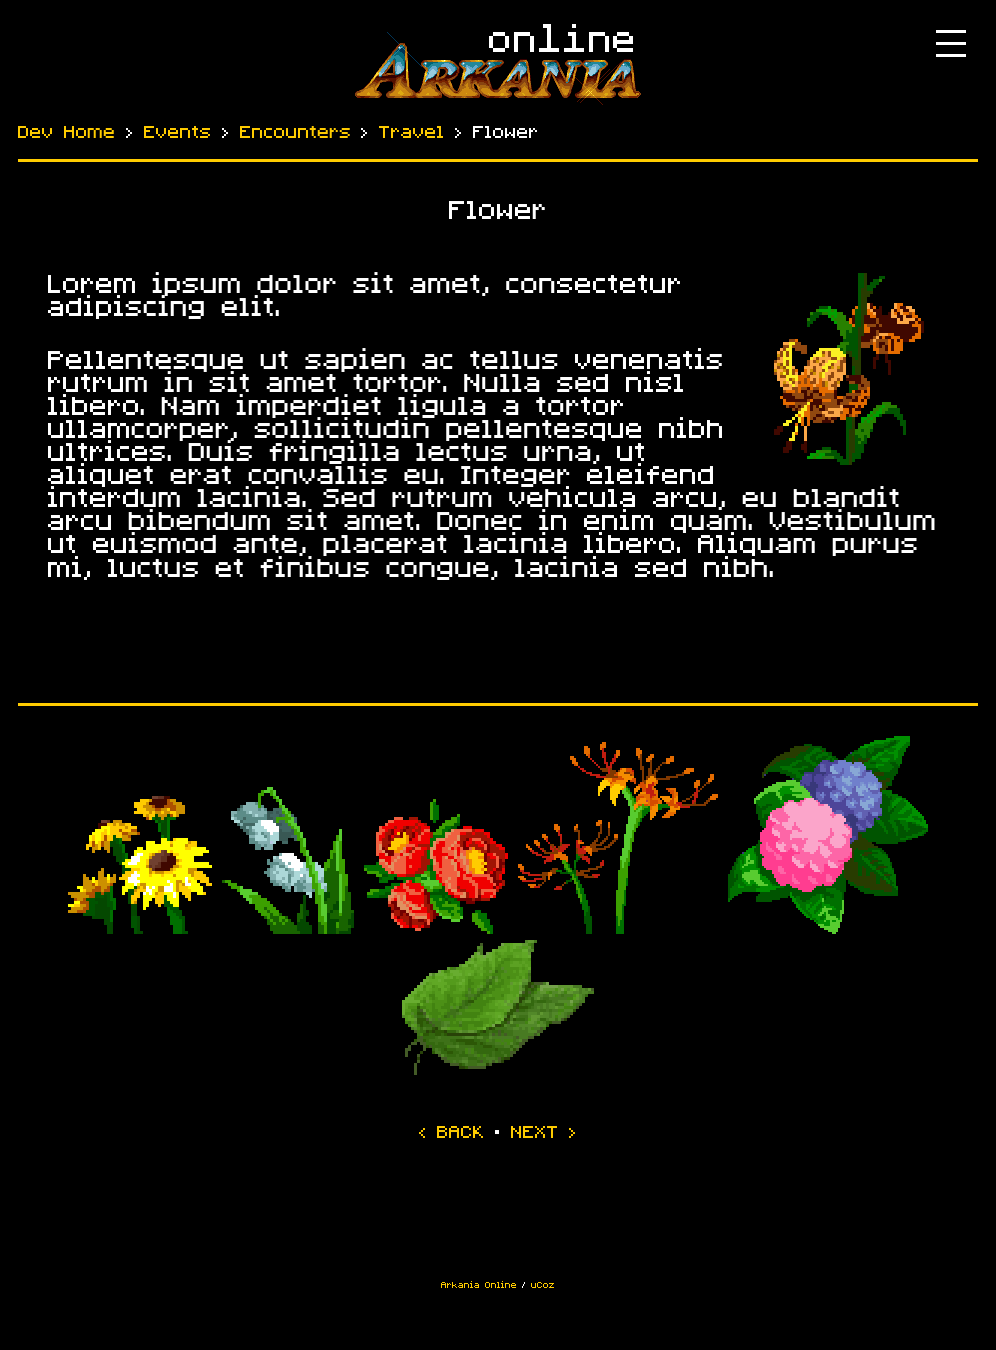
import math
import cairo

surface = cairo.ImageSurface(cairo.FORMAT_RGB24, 996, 1350)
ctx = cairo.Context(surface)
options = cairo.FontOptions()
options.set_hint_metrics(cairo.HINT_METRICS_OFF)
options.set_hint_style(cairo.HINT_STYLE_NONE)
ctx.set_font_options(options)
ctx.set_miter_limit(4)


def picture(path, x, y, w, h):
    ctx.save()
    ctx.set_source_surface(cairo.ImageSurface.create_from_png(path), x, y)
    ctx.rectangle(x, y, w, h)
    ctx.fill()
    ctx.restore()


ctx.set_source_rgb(0, 0, 0)
ctx.paint()
picture("img1.png", 355, 24, 286, 81)
ctx.set_source_rgb(1, 1, 1)
ctx.rectangle(936, 30, 30, 3)
ctx.fill()
ctx.rectangle(936, 54, 30, 3)
ctx.fill()
ctx.rectangle(936, 42, 30, 3)
ctx.fill()
ctx.set_source_rgb(1, 0.8, 0)
ctx.rectangle(18, 159, 960, 3)
ctx.fill()
ctx.select_font_face("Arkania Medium")
ctx.set_font_size(24)
ctx.move_to(18, 138)
ctx.show_text("Dev Home")
ctx.set_source_rgb(1, 1, 1)
ctx.move_to(126, 138)
ctx.show_text("›")
ctx.set_source_rgb(1, 0.8, 0)
ctx.move_to(144, 138)
ctx.show_text("Events")
ctx.set_source_rgb(1, 1, 1)
ctx.move_to(222, 138)
ctx.show_text("›")
ctx.set_source_rgb(1, 0.8, 0)
ctx.move_to(240, 138)
ctx.show_text("Encounters")
ctx.set_source_rgb(1, 1, 1)
ctx.move_to(361, 138)
ctx.show_text("›")
ctx.set_source_rgb(1, 0.8, 0)
ctx.move_to(379, 138)
ctx.show_text("Travel")
ctx.set_source_rgb(1, 1, 1)
ctx.move_to(455, 138)
ctx.show_text("› Flower")
ctx.set_font_size(36)
ctx.move_to(449, 219)
ctx.show_text("Flower")
ctx.move_to(48, 293)
ctx.show_text("Lorem ipsum dolor sit amet, consectetur")
ctx.move_to(48, 316)
ctx.show_text("adipiscing elit.")
picture("img2.png", 774, 273, 150, 192)
ctx.move_to(48, 369)
ctx.show_text("Pellentesque ut sapien ac tellus venenatis")
ctx.move_to(48, 392)
ctx.show_text("rutrum in sit amet tortor. Nulla sed nisl")
ctx.move_to(48, 415)
ctx.show_text("libero. Nam imperdiet ligula a tortor")
ctx.move_to(48, 438)
ctx.show_text("ullamcorper, sollicitudin pellentesque nibh")
ctx.move_to(48, 461)
ctx.show_text("ultrices. Duis fringilla lectus urna, ut")
ctx.move_to(48, 484)
ctx.show_text("aliquet erat convallis eu. Integer eleifend")
ctx.move_to(48, 507)
ctx.show_text("interdum lacinia. Sed rutrum vehicula arcu, eu blandit")
ctx.move_to(48, 530)
ctx.show_text("arcu bibendum sit amet. Donec in enim quam. Vestibulum")
ctx.move_to(48, 553)
ctx.show_text("ut euismod ante, placerat lacinia libero. Aliquam purus")
ctx.move_to(48, 577)
ctx.show_text("mi, luctus et finibus congue, lacinia sed nibh.")
ctx.set_source_rgb(1, 0.8, 0)
ctx.rectangle(18, 703, 960, 3)
ctx.fill()
picture("img3.png", 68, 796, 144, 138)
picture("img4.png", 222, 787, 132, 147)
picture("img5.png", 364, 799, 144, 135)
picture("img6.png", 518, 742, 200, 192)
picture("img7.png", 728, 736, 200, 198)
picture("img8.png", 402, 940, 192, 135)
ctx.set_font_size(24)
ctx.move_to(419, 1138)
ctx.show_text("‹ BACK")
ctx.set_source_rgb(1, 1, 1)
ctx.move_to(495, 1138)
ctx.show_text("·")
ctx.set_source_rgb(1, 0.8, 0)
ctx.move_to(511, 1138)
ctx.show_text("NEXT ›")
ctx.set_font_size(12)
ctx.move_to(441, 1288)
ctx.show_text("Arkania Online")
ctx.set_source_rgb(1, 1, 1)
ctx.move_to(522, 1288)
ctx.show_text("/")
ctx.set_source_rgb(1, 0.8, 0)
ctx.move_to(531, 1288)
ctx.show_text("uCoz")
surface.write_to_png("page.png")
